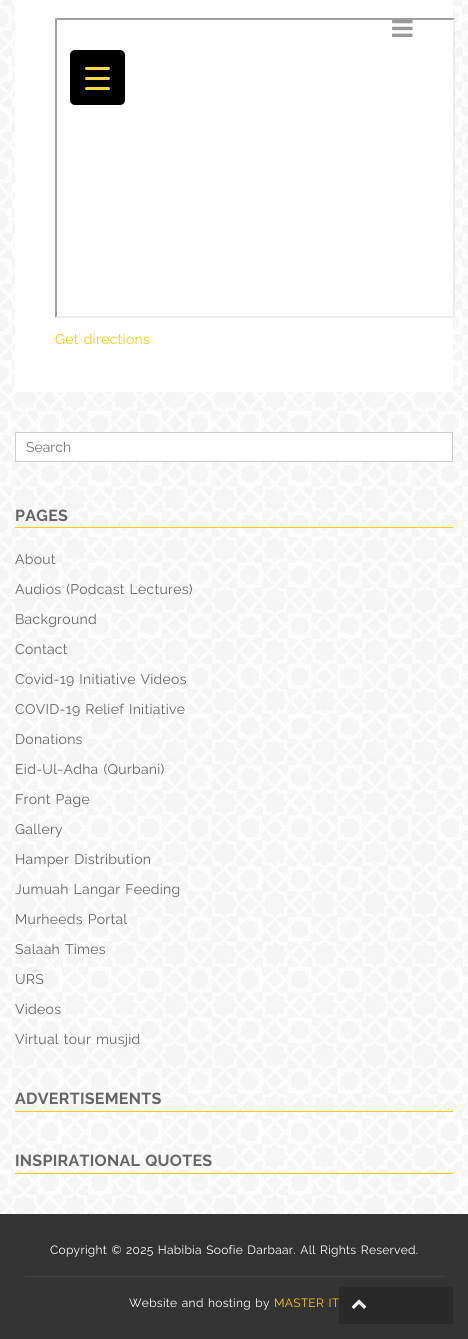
import math
import cairo

surface = cairo.ImageSurface(cairo.FORMAT_RGB24, 468, 1339)
ctx = cairo.Context(surface)
options = cairo.FontOptions()
options.set_hint_metrics(cairo.HINT_METRICS_OFF)
options.set_hint_style(cairo.HINT_STYLE_NONE)
ctx.set_font_options(options)
ctx.set_miter_limit(4)


def spaced_text(x, y, s, letter, word):
    ctx.move_to(x, y)
    for ch in s:
        ctx.show_text(ch)
        ctx.rel_move_to(letter + word * (ch == ' '), 0)


def round_rect(x, y, w, h, r):
    ctx.new_sub_path()
    for i, (u, v) in enumerate([(x + w - r, y + h - r), (x + r, y + h - r), (x + r, y + r), (x + w - r, y + r)]):
        ctx.arc(u, v, r, i * math.pi / 2, (i + 1) * math.pi / 2)
    ctx.close_path()


def picture(path, x, y, w, h):
    ctx.save()
    ctx.set_source_surface(cairo.ImageSurface.create_from_png(path), x, y)
    ctx.rectangle(x, y, w, h)
    ctx.fill()
    ctx.restore()


ctx.set_source_rgb(1, 1, 1)
ctx.paint()
picture("img1.png", 0, 0, 468, 1214)
ctx.set_source_rgb(1, 1, 1)
ctx.rectangle(15, 0, 438, 392)
ctx.fill()
picture("img2.png", 392, 20, 21, 17)
ctx.set_source_rgb(0, 0, 0)
round_rect(70, 50, 55, 55, 5)
ctx.fill()
ctx.set_source_rgb(0.98, 0.839, 0.267)
round_rect(85, 77, 25, 3, 1.5)
ctx.fill()
round_rect(85, 67, 25, 3, 1.5)
ctx.fill()
round_rect(85, 87, 25, 3, 1.5)
ctx.fill()
ctx.set_source_rgb(0.624, 0.624, 0.624)
ctx.new_path()
ctx.move_to(55, 18)
ctx.line_to(455, 18)
ctx.line_to(453, 20)
ctx.line_to(57, 20)
ctx.close_path()
ctx.fill()
ctx.set_source_rgb(0.933, 0.933, 0.933)
ctx.new_path()
ctx.move_to(455, 18)
ctx.line_to(455, 318)
ctx.line_to(453, 316)
ctx.line_to(453, 20)
ctx.close_path()
ctx.fill()
ctx.new_path()
ctx.move_to(455, 318)
ctx.line_to(55, 318)
ctx.line_to(57, 316)
ctx.line_to(453, 316)
ctx.close_path()
ctx.fill()
ctx.set_source_rgb(0.624, 0.624, 0.624)
ctx.new_path()
ctx.move_to(55, 318)
ctx.line_to(55, 18)
ctx.line_to(57, 20)
ctx.line_to(57, 316)
ctx.close_path()
ctx.fill()
ctx.select_font_face("Raleway")
ctx.set_font_size(14)
ctx.set_source_rgb(1, 0.8, 0)
spaced_text(55, 344, "Get directions", 0.28, 1)
ctx.set_source_rgb(1, 1, 1)
ctx.rectangle(15.5, 432.5, 437, 29)
ctx.fill_preserve()
ctx.set_source_rgb(0.8, 0.8, 0.8)
ctx.set_line_width(1)
ctx.stroke()
ctx.set_source_rgb(0.459, 0.459, 0.459)
ctx.move_to(26, 452)
ctx.show_text("Search")
ctx.set_source_rgb(1, 0.8, 0)
ctx.rectangle(15, 527, 438, 1)
ctx.fill()
ctx.select_font_face("Raleway", cairo.FONT_SLANT_NORMAL, cairo.FONT_WEIGHT_BOLD)
ctx.set_font_size(16)
ctx.set_source_rgb(0.4, 0.4, 0.4)
spaced_text(15, 521, "PAGES", 0.28, 0)
ctx.select_font_face("Raleway")
ctx.set_font_size(14)
spaced_text(15, 564, "About", 0.28, 0)
spaced_text(15, 594, "Audios (Podcast Lectures)", 0.28, 1)
spaced_text(15, 624, "Background", 0.28, 0)
spaced_text(15, 654, "Contact", 0.28, 0)
spaced_text(15, 684, "Covid-19 Initiative Videos", 0.28, 1)
spaced_text(15, 714, "COVID-19 Relief Initiative", 0.28, 1)
spaced_text(15, 744, "Donations", 0.28, 0)
spaced_text(15, 774, "Eid-Ul-Adha (Qurbani)", 0.28, 1)
spaced_text(15, 804, "Front Page", 0.28, 1)
spaced_text(15, 834, "Gallery", 0.28, 0)
spaced_text(15, 864, "Hamper Distribution", 0.28, 1)
spaced_text(15, 894, "Jumuah Langar Feeding", 0.28, 1)
spaced_text(15, 924, "Murheeds Portal", 0.28, 1)
spaced_text(15, 954, "Salaah Times", 0.28, 1)
spaced_text(15, 984, "URS", 0.28, 0)
spaced_text(15, 1014, "Videos", 0.28, 0)
spaced_text(15, 1044, "Virtual tour musjid", 0.28, 1)
ctx.set_source_rgb(1, 0.8, 0)
ctx.rectangle(15, 1111, 438, 1)
ctx.fill()
ctx.select_font_face("Raleway", cairo.FONT_SLANT_NORMAL, cairo.FONT_WEIGHT_BOLD)
ctx.set_font_size(16)
ctx.set_source_rgb(0.4, 0.4, 0.4)
spaced_text(15, 1104, "ADVERTISEMENTS", 0.28, 0)
ctx.set_source_rgb(1, 0.8, 0)
ctx.rectangle(15, 1173, 438, 1)
ctx.fill()
ctx.set_source_rgb(0.4, 0.4, 0.4)
spaced_text(15, 1166, "INSPIRATIONAL QUOTES", 0.28, 1)
ctx.set_source_rgb(0.2, 0.2, 0.2)
ctx.rectangle(0, 1214, 468, 125)
ctx.fill()
ctx.select_font_face("Raleway")
ctx.set_font_size(12)
ctx.set_source_rgb(1, 1, 1)
spaced_text(50, 1254, "Copyright © 2025 Habibia Soofie Darbaar. All Rights Reserved.", 0.28, 1)
ctx.set_source_rgb(0.267, 0.267, 0.267)
ctx.rectangle(25, 1276, 418, 1)
ctx.fill()
ctx.set_source_rgb(1, 1, 1)
spaced_text(129, 1307, "Website and hosting by", 0.28, 1)
ctx.set_source_rgb(1, 0.8, 0)
spaced_text(274, 1307, "MASTER IT", 0.28, 1)
ctx.set_source_rgb(0.161, 0.161, 0.161)
round_rect(339, 1287, 114, 37, 2)
ctx.fill()
picture("img3.png", 351, 1299, 16, 10)
surface.write_to_png("page.png")
